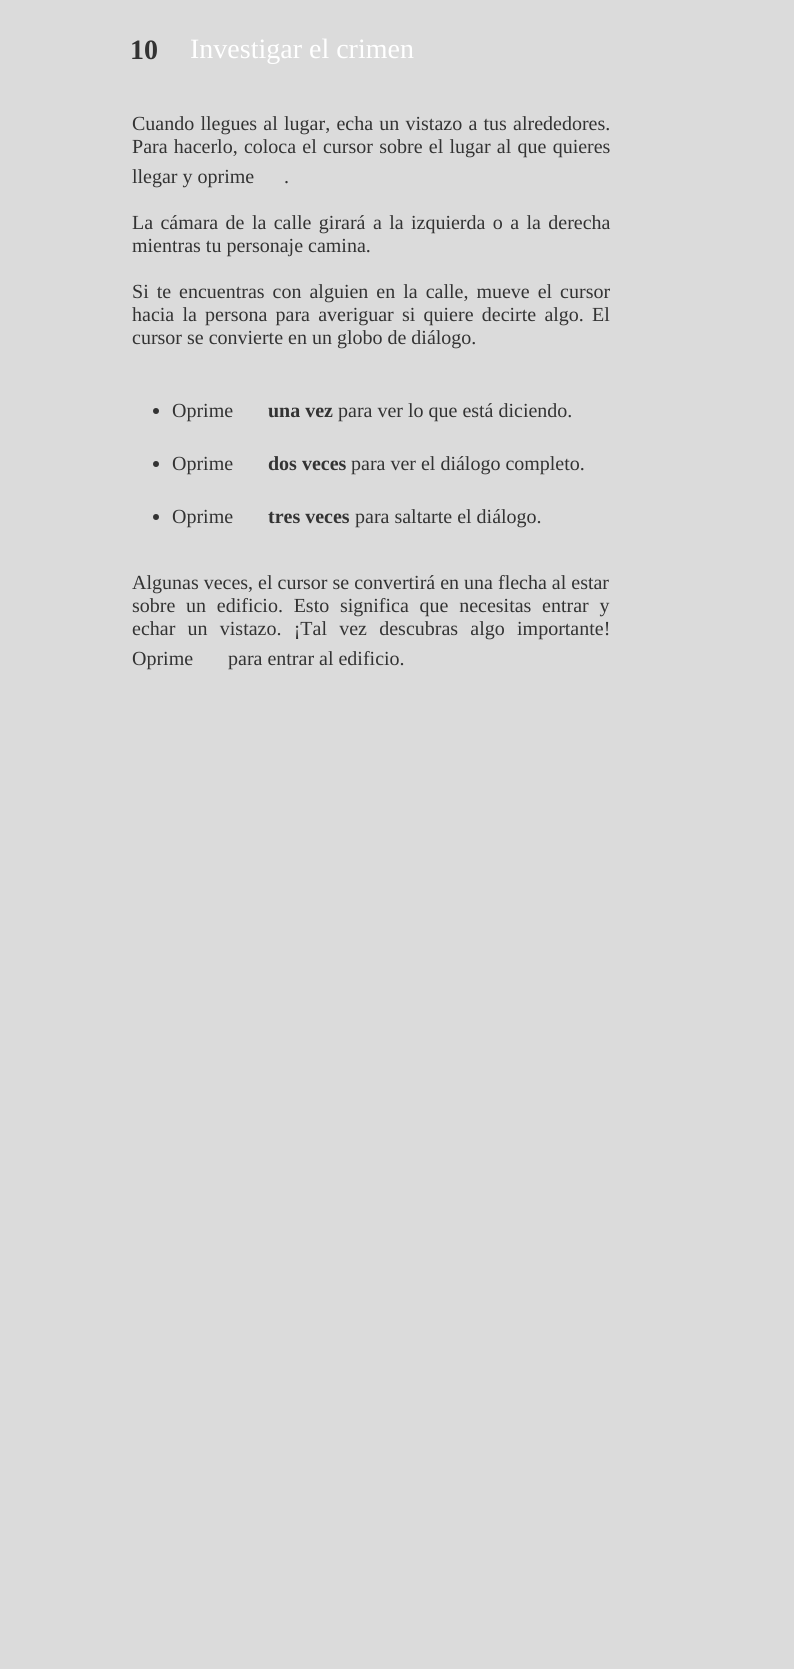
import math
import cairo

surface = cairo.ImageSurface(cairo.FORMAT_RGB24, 794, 1669)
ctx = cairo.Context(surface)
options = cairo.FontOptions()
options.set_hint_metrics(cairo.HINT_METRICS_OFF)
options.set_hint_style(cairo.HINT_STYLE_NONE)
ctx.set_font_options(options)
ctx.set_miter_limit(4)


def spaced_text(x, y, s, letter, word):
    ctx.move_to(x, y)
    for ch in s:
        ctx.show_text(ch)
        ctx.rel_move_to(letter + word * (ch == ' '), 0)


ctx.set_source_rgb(0.859, 0.859, 0.859)
ctx.paint()
ctx.select_font_face("Liberation Serif", cairo.FONT_SLANT_NORMAL, cairo.FONT_WEIGHT_BOLD)
ctx.set_font_size(28)
ctx.set_source_rgb(0.2, 0.2, 0.2)
ctx.move_to(130, 59)
ctx.show_text("10")
ctx.select_font_face("Liberation Serif")
ctx.set_source_rgb(1, 1, 1)
ctx.move_to(190, 58)
ctx.show_text("Investigar el crimen")
ctx.set_font_size(20)
ctx.set_source_rgb(0.2, 0.2, 0.2)
spaced_text(132, 130, "Cuando llegues al lugar, echa un vistazo a tus alrededores.", 0, 1.25)
spaced_text(132, 153, "Para hacerlo, coloca el cursor sobre el lugar al que quieres", 0, 1.25)
ctx.move_to(132, 183)
ctx.show_text("llegar y oprime")
ctx.move_to(284, 183)
ctx.show_text(".")
spaced_text(132, 229, "La cámara de la calle girará a la izquierda o a la derecha", 0, 2.4)
ctx.move_to(132, 252)
ctx.show_text("mientras tu personaje camina.")
spaced_text(132, 298, "Si te encuentras con alguien en la calle, mueve el cursor", 0, 3)
spaced_text(132, 321, "hacia la persona para averiguar si quiere decirte algo. El", 0, 3.25)
ctx.move_to(132, 344)
ctx.show_text("cursor se convierte en un globo de diálogo.")
ctx.new_path()
ctx.arc(156, 411, 3, 0, 2 * math.pi)
ctx.fill()
ctx.move_to(172, 417)
ctx.show_text("Oprime")
ctx.select_font_face("Liberation Serif", cairo.FONT_SLANT_NORMAL, cairo.FONT_WEIGHT_BOLD)
ctx.move_to(268, 417)
ctx.show_text("una vez")
ctx.select_font_face("Liberation Serif")
ctx.move_to(338, 417)
ctx.show_text("para ver lo que está diciendo.")
ctx.new_path()
ctx.arc(156, 464, 3, 0, 2 * math.pi)
ctx.fill()
ctx.move_to(172, 470)
ctx.show_text("Oprime")
ctx.select_font_face("Liberation Serif", cairo.FONT_SLANT_NORMAL, cairo.FONT_WEIGHT_BOLD)
ctx.move_to(268, 470)
ctx.show_text("dos veces")
ctx.select_font_face("Liberation Serif")
ctx.move_to(351, 470)
ctx.show_text("para ver el diálogo completo.")
ctx.new_path()
ctx.arc(156, 517, 3, 0, 2 * math.pi)
ctx.fill()
ctx.move_to(172, 523)
ctx.show_text("Oprime")
ctx.select_font_face("Liberation Serif", cairo.FONT_SLANT_NORMAL, cairo.FONT_WEIGHT_BOLD)
ctx.move_to(268, 523)
ctx.show_text("tres veces")
ctx.select_font_face("Liberation Serif")
ctx.move_to(355, 523)
ctx.show_text("para saltarte el diálogo.")
ctx.move_to(132, 589)
ctx.show_text("Algunas veces, el cursor se convertirá en una flecha al estar")
spaced_text(132, 612, "sobre un edificio. Esto significa que necesitas entrar y", 0, 5.75)
spaced_text(132, 635, "echar un vistazo. ¡Tal vez descubras algo importante!", 0, 7.25)
ctx.move_to(132, 665)
ctx.show_text("Oprime")
ctx.move_to(228, 665)
ctx.show_text("para entrar al edificio.")
surface.write_to_png("page.png")
